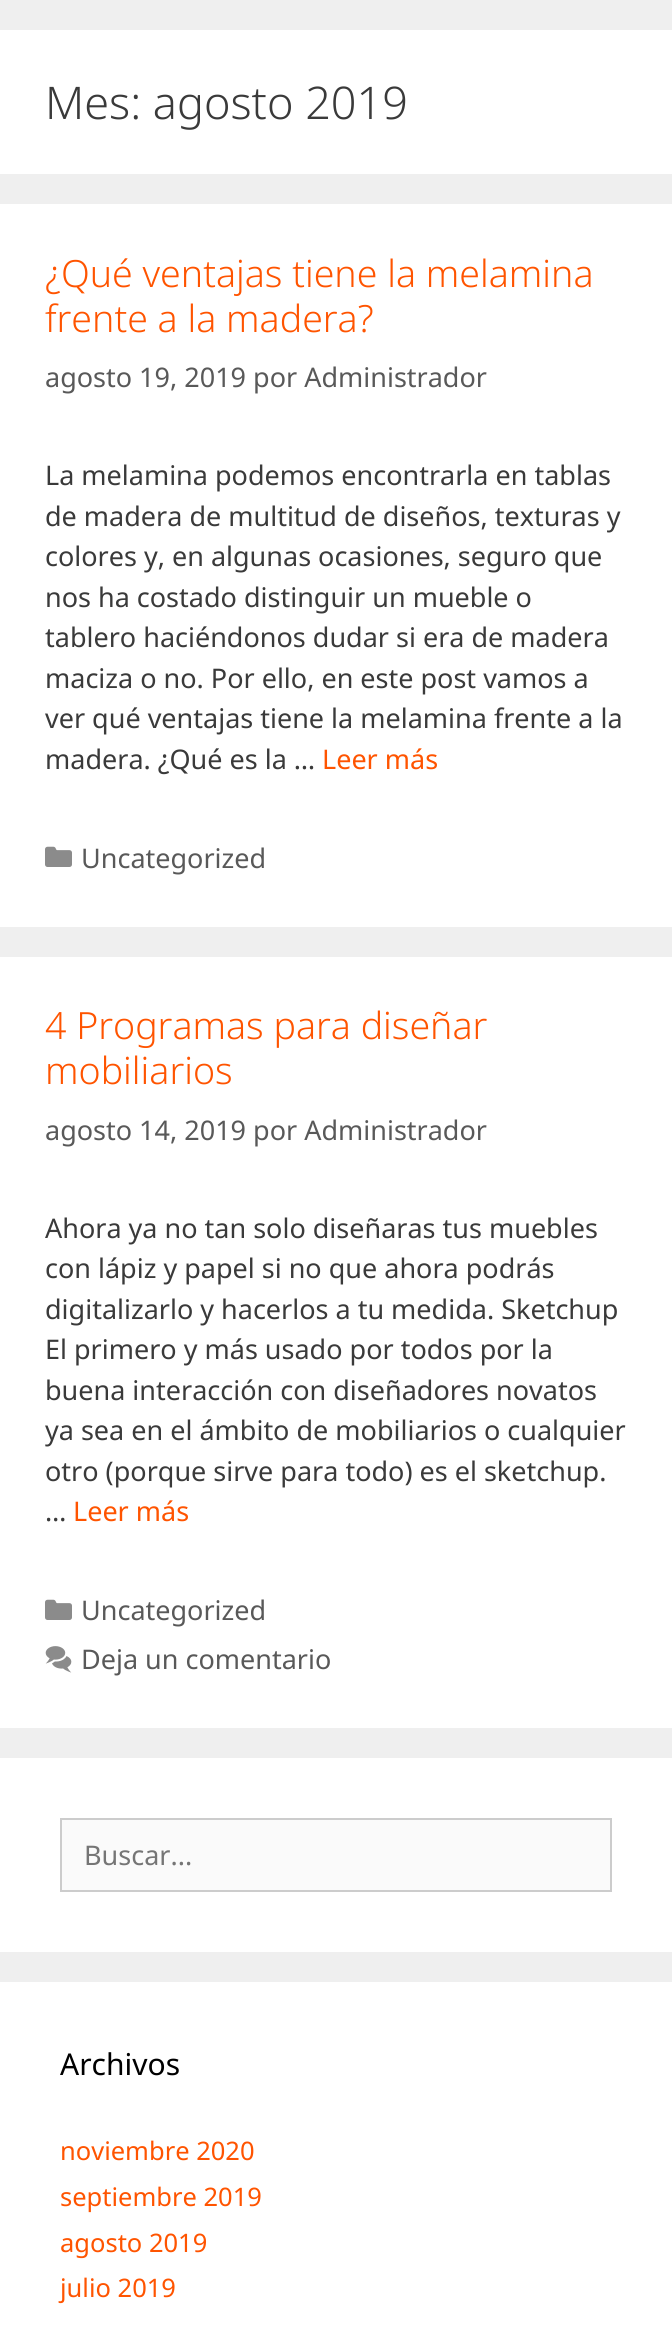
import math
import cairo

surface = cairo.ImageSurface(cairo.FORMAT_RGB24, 672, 2326)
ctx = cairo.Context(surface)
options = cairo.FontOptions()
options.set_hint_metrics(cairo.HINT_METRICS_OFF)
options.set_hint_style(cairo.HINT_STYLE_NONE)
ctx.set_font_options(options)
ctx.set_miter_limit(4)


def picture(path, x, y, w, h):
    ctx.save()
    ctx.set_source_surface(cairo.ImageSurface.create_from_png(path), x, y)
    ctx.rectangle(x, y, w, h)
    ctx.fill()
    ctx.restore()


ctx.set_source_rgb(0.937, 0.937, 0.937)
ctx.paint()
ctx.set_source_rgb(1, 1, 1)
ctx.rectangle(0, 30, 672, 144)
ctx.fill()
ctx.select_font_face("Noto Sans Light")
ctx.set_font_size(45)
ctx.set_source_rgb(0.227, 0.227, 0.227)
ctx.move_to(45, 119)
ctx.show_text("Mes: agosto 2019")
ctx.set_source_rgb(1, 1, 1)
ctx.rectangle(0, 204, 672, 723)
ctx.fill()
ctx.set_font_size(37.5)
ctx.set_source_rgb(1, 0.329, 0)
ctx.move_to(45, 287)
ctx.show_text("¿Qué ventajas tiene la melamina")
ctx.move_to(45, 332)
ctx.show_text("frente a la madera?")
ctx.select_font_face("Noto Sans")
ctx.set_font_size(27)
ctx.set_source_rgb(0.349, 0.349, 0.349)
ctx.move_to(45, 387)
ctx.show_text("agosto 19, 2019 por Administrador")
ctx.set_source_rgb(0.227, 0.227, 0.227)
ctx.move_to(45, 485)
ctx.show_text("La melamina podemos encontrarla en tablas")
ctx.move_to(45, 526)
ctx.show_text("de madera de multitud de diseños, texturas y")
ctx.move_to(45, 566)
ctx.show_text("colores y, en algunas ocasiones, seguro que")
ctx.move_to(45, 607)
ctx.show_text("nos ha costado distinguir un mueble o")
ctx.move_to(45, 647)
ctx.show_text("tablero haciéndonos dudar si era de madera")
ctx.move_to(45, 688)
ctx.show_text("maciza o no. Por ello, en este post vamos a")
ctx.move_to(45, 728)
ctx.show_text("ver qué ventajas tiene la melamina frente a la")
ctx.move_to(45, 769)
ctx.show_text("madera. ¿Qué es la …")
ctx.set_source_rgb(1, 0.329, 0)
ctx.move_to(322, 769)
ctx.show_text("Leer más")
picture("img1.png", 45, 846, 27, 21)
ctx.set_source_rgb(0.349, 0.349, 0.349)
ctx.move_to(81, 868)
ctx.show_text("Uncategorized")
ctx.set_source_rgb(1, 1, 1)
ctx.rectangle(0, 957, 672, 771)
ctx.fill()
ctx.select_font_face("Noto Sans Light")
ctx.set_font_size(37.5)
ctx.set_source_rgb(1, 0.329, 0)
ctx.move_to(45, 1039)
ctx.show_text("4 Programas para diseñar")
ctx.move_to(45, 1084)
ctx.show_text("mobiliarios")
ctx.select_font_face("Noto Sans")
ctx.set_font_size(27)
ctx.set_source_rgb(0.349, 0.349, 0.349)
ctx.move_to(45, 1140)
ctx.show_text("agosto 14, 2019 por Administrador")
ctx.set_source_rgb(0.227, 0.227, 0.227)
ctx.move_to(45, 1238)
ctx.show_text("Ahora ya no tan solo diseñaras tus muebles")
ctx.move_to(45, 1278)
ctx.show_text("con lápiz y papel si no que ahora podrás")
ctx.move_to(45, 1319)
ctx.show_text("digitalizarlo y hacerlos a tu medida. Sketchup")
ctx.move_to(45, 1359)
ctx.show_text("El primero y más usado por todos por la")
ctx.move_to(45, 1400)
ctx.show_text("buena interacción con diseñadores novatos")
ctx.move_to(45, 1440)
ctx.show_text("ya sea en el ámbito de mobiliarios o cualquier")
ctx.move_to(45, 1481)
ctx.show_text("otro (porque sirve para todo) es el sketchup.")
ctx.move_to(45, 1521)
ctx.show_text("…")
ctx.set_source_rgb(1, 0.329, 0)
ctx.move_to(73, 1521)
ctx.show_text("Leer más")
picture("img1.png", 45, 1599, 27, 21)
ctx.set_source_rgb(0.349, 0.349, 0.349)
ctx.move_to(81, 1620)
ctx.show_text("Uncategorized")
picture("img2.png", 45, 1646, 27, 27)
ctx.move_to(81, 1669)
ctx.show_text("Deja un comentario")
ctx.set_source_rgb(1, 1, 1)
ctx.rectangle(0, 1758, 672, 194)
ctx.fill()
ctx.set_source_rgb(0.98, 0.98, 0.98)
ctx.rectangle(61, 1819, 550, 72)
ctx.fill_preserve()
ctx.set_source_rgb(0.8, 0.8, 0.8)
ctx.stroke()
ctx.set_source_rgb(0.459, 0.459, 0.459)
ctx.move_to(84, 1865)
ctx.show_text("Buscar...")
ctx.set_source_rgb(1, 1, 1)
ctx.rectangle(0, 1982, 672, 344)
ctx.fill()
ctx.set_font_size(30)
ctx.set_source_rgb(0, 0, 0)
ctx.move_to(60, 2075)
ctx.show_text("Archivos")
ctx.set_font_size(25.5)
ctx.set_source_rgb(1, 0.329, 0)
ctx.move_to(60, 2160)
ctx.show_text("noviembre 2020")
ctx.move_to(60, 2206)
ctx.show_text("septiembre 2019")
ctx.move_to(60, 2252)
ctx.show_text("agosto 2019")
ctx.move_to(60, 2297)
ctx.show_text("julio 2019")
surface.write_to_png("page.png")
